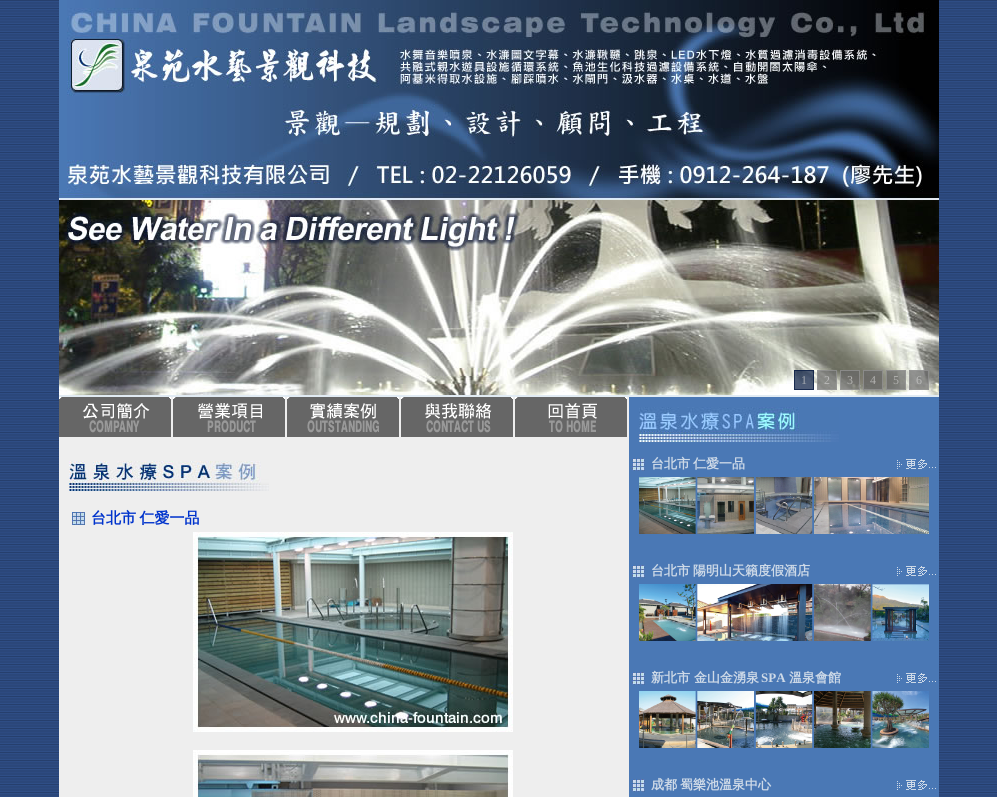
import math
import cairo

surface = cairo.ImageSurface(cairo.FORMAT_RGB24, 997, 797)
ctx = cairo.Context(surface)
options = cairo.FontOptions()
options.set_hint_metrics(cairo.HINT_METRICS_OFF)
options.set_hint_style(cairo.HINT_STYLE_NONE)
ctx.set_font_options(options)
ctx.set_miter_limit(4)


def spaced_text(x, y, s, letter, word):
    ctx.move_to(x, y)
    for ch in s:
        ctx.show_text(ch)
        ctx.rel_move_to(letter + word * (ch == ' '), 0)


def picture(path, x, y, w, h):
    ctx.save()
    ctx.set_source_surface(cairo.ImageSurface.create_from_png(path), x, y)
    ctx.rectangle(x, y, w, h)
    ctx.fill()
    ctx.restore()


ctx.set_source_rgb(1, 1, 1)
ctx.paint()
picture("img1.png", 0, 0, 997, 797)
picture("img2.png", 59, 0, 880, 200)
picture("img3.png", 59, 200, 880, 195)
ctx.set_source_rgba(0.016, 0.094, 0.251, 0.7)
ctx.rectangle(794, 370, 20, 20)
ctx.fill()
ctx.rectangle(794.5, 370.5, 19, 19)
ctx.set_line_width(1)
ctx.stroke()
ctx.select_font_face("Liberation Serif")
ctx.set_font_size(12)
ctx.set_source_rgb(0.643, 0.663, 0.69)
ctx.move_to(801, 384)
ctx.show_text("1")
ctx.set_source_rgba(0.4, 0.4, 0.4, 0.7)
ctx.rectangle(817, 370, 20, 20)
ctx.fill()
ctx.rectangle(817.5, 370.5, 19, 19)
ctx.set_source_rgba(0.6, 0.6, 0.6, 0.7)
ctx.stroke()
ctx.set_source_rgb(0.725, 0.725, 0.722)
ctx.move_to(824, 384)
ctx.show_text("2")
ctx.set_source_rgba(0.4, 0.4, 0.4, 0.7)
ctx.rectangle(840, 370, 20, 20)
ctx.fill()
ctx.rectangle(840.5, 370.5, 19, 19)
ctx.set_source_rgba(0.6, 0.6, 0.6, 0.7)
ctx.stroke()
ctx.set_source_rgb(0.698, 0.698, 0.69)
ctx.move_to(847, 384)
ctx.show_text("3")
ctx.set_source_rgba(0.4, 0.4, 0.4, 0.7)
ctx.rectangle(863, 370, 20, 20)
ctx.fill()
ctx.rectangle(863.5, 370.5, 19, 19)
ctx.set_source_rgba(0.6, 0.6, 0.6, 0.7)
ctx.stroke()
ctx.set_source_rgb(0.698, 0.698, 0.69)
ctx.move_to(870, 384)
ctx.show_text("4")
ctx.set_source_rgba(0.4, 0.4, 0.4, 0.7)
ctx.rectangle(886, 370, 20, 20)
ctx.fill()
ctx.rectangle(886.5, 370.5, 19, 19)
ctx.set_source_rgba(0.6, 0.6, 0.6, 0.7)
ctx.stroke()
ctx.set_source_rgb(0.698, 0.698, 0.69)
ctx.move_to(893, 384)
ctx.show_text("5")
ctx.set_source_rgba(0.4, 0.4, 0.4, 0.7)
ctx.rectangle(909, 370, 20, 20)
ctx.fill()
ctx.rectangle(909.5, 370.5, 19, 19)
ctx.set_source_rgba(0.6, 0.6, 0.6, 0.7)
ctx.stroke()
ctx.set_source_rgb(0.725, 0.725, 0.722)
ctx.move_to(916, 384)
ctx.show_text("6")
ctx.set_source_rgb(0.882, 0.918, 0.953)
ctx.rectangle(59, 395, 880, 2)
ctx.fill()
ctx.set_source_rgb(0.933, 0.933, 0.933)
ctx.rectangle(59, 397, 570, 400)
ctx.fill()
ctx.set_source_rgb(0.4, 0.4, 0.4)
ctx.rectangle(59, 397, 112, 40)
ctx.fill()
picture("img4.png", 59, 397, 3, 2)
picture("img5.png", 169, 397, 2, 2)
picture("img6.png", 82, 403, 68, 30)
ctx.rectangle(173, 397, 112, 40)
ctx.fill()
picture("img7.png", 173, 397, 3, 2)
picture("img5.png", 283, 397, 2, 2)
picture("img8.png", 198, 403, 64, 30)
ctx.rectangle(287, 397, 112, 40)
ctx.fill()
picture("img4.png", 287, 397, 3, 2)
picture("img5.png", 397, 397, 2, 2)
picture("img9.png", 307, 403, 72, 30)
ctx.rectangle(401, 397, 112, 40)
ctx.fill()
picture("img7.png", 401, 397, 3, 2)
picture("img5.png", 511, 397, 2, 2)
picture("img10.png", 425, 403, 67, 30)
ctx.rectangle(515, 397, 112, 40)
ctx.fill()
picture("img4.png", 515, 397, 3, 2)
picture("img5.png", 625, 397, 2, 2)
picture("img11.png", 548, 403, 49, 30)
picture("img12.png", 69, 461, 200, 30)
picture("img13.png", 72, 512, 13, 13)
ctx.select_font_face("WenQuanYi Zen Hei", cairo.FONT_SLANT_NORMAL, cairo.FONT_WEIGHT_BOLD)
ctx.set_font_size(15)
ctx.set_source_rgb(0, 0.2, 0.8)
spaced_text(91, 523, "台北市 仁愛一品", 0, -1)
picture("img14.png", 193, 532, 320, 200)
picture("img15.png", 193, 750, 320, 47)
ctx.set_source_rgb(0.29, 0.471, 0.71)
ctx.rectangle(629, 397, 310, 400)
ctx.fill()
picture("img16.png", 639, 407, 200, 35)
picture("img13.png", 632, 458, 13, 13)
ctx.set_font_size(13)
ctx.set_source_rgb(0.804, 0.851, 0.906)
spaced_text(651, 468, "台北市 仁愛一品", 0, -1)
picture("img17.png", 897, 459, 39, 10)
picture("img18.png", 639, 477, 290, 57)
picture("img13.png", 632, 565, 13, 13)
spaced_text(651, 575, "台北市 陽明山天籟度假酒店", 0, -1)
picture("img17.png", 897, 566, 39, 10)
picture("img19.png", 639, 584, 290, 57)
picture("img13.png", 632, 672, 13, 13)
ctx.move_to(651, 682)
ctx.show_text("新北市 金山金湧泉")
ctx.select_font_face("Liberation Serif", cairo.FONT_SLANT_NORMAL, cairo.FONT_WEIGHT_BOLD)
ctx.move_to(761, 682)
ctx.show_text("SPA")
ctx.select_font_face("WenQuanYi Zen Hei", cairo.FONT_SLANT_NORMAL, cairo.FONT_WEIGHT_BOLD)
ctx.move_to(789, 682)
ctx.show_text("溫泉會館")
picture("img17.png", 897, 673, 39, 10)
picture("img20.png", 639, 691, 290, 57)
picture("img13.png", 632, 779, 13, 13)
spaced_text(651, 789, "成都 蜀樂池溫泉中心", 0, -1)
picture("img17.png", 897, 780, 39, 10)
surface.write_to_png("page.png")
